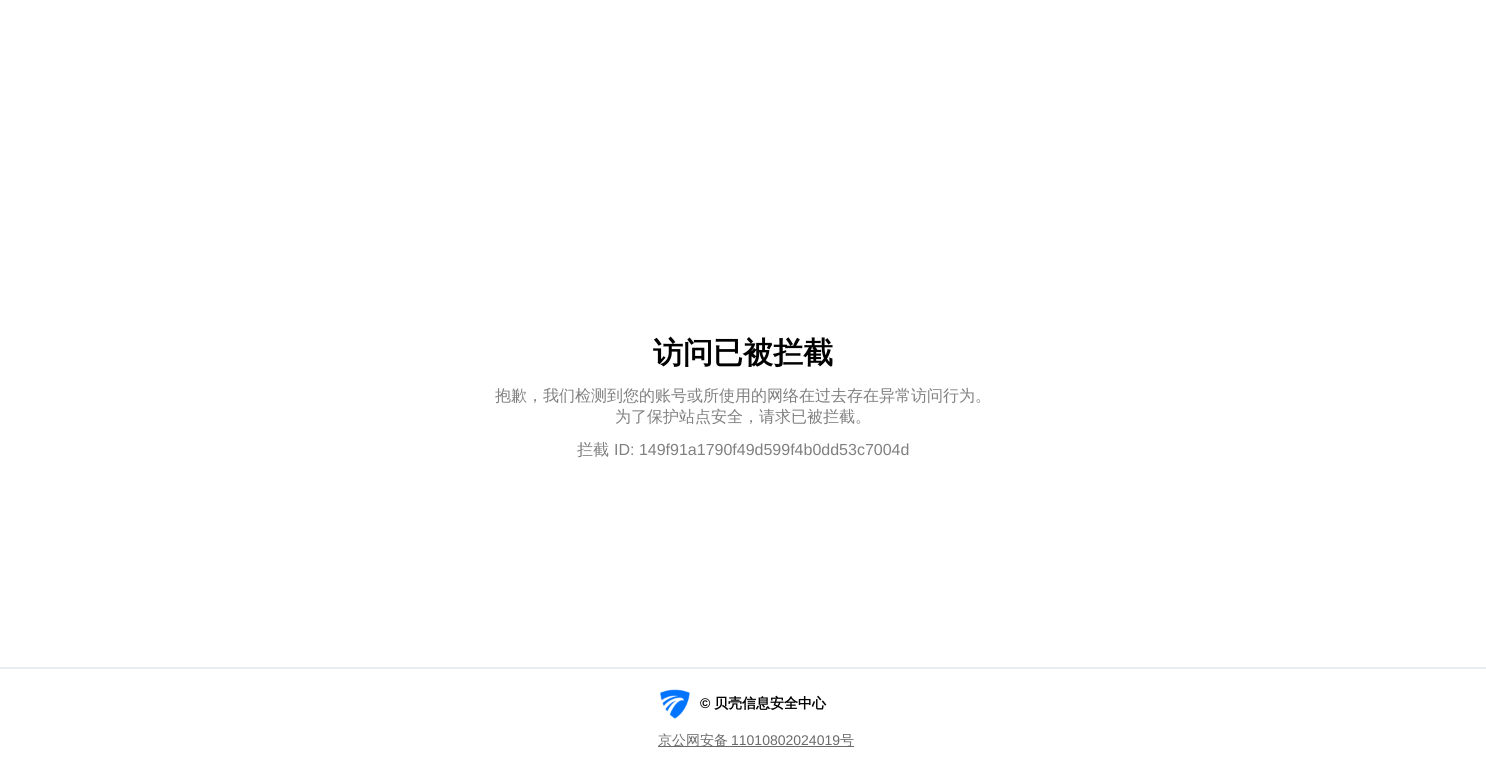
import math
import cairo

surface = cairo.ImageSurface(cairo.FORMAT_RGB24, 1486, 771)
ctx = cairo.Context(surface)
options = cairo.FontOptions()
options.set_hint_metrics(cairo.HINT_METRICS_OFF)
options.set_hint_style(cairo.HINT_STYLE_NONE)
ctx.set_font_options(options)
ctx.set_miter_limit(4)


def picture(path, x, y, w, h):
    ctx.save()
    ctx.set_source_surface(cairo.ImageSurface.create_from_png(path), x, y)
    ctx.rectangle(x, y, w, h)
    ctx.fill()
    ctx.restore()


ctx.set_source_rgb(1, 1, 1)
ctx.paint()
ctx.select_font_face("WenQuanYi Zen Hei", cairo.FONT_SLANT_NORMAL, cairo.FONT_WEIGHT_BOLD)
ctx.set_font_size(30)
ctx.set_source_rgb(0, 0, 0)
ctx.move_to(653, 363)
ctx.show_text("访问已被拦截")
ctx.select_font_face("WenQuanYi Zen Hei Medium")
ctx.set_font_size(16)
ctx.set_source_rgb(0.502, 0.502, 0.502)
ctx.move_to(495, 401)
ctx.show_text("抱歉，我们检测到您的账号或所使用的网络在过去存在异常访问行为。")
ctx.move_to(615, 422)
ctx.show_text("为了保护站点安全，请求已被拦截。")
ctx.move_to(577, 455)
ctx.show_text("拦截")
ctx.select_font_face("Liberation Sans")
ctx.move_to(614, 455)
ctx.show_text("ID: 149f91a1790f49d599f4b0dd53c7004d")
ctx.set_source_rgb(0.914, 0.925, 0.937)
ctx.rectangle(0, 667, 1486, 2)
ctx.fill()
picture("img1.png", 660, 689, 30, 30)
ctx.select_font_face("Liberation Sans", cairo.FONT_SLANT_NORMAL, cairo.FONT_WEIGHT_BOLD)
ctx.set_font_size(14)
ctx.set_source_rgb(0, 0, 0)
ctx.move_to(700, 708)
ctx.show_text("©")
ctx.select_font_face("WenQuanYi Zen Hei", cairo.FONT_SLANT_NORMAL, cairo.FONT_WEIGHT_BOLD)
ctx.move_to(714, 708)
ctx.show_text("贝壳信息安全中心")
ctx.set_source_rgb(0.416, 0.416, 0.416)
ctx.rectangle(658, 746, 196, 1)
ctx.fill()
ctx.select_font_face("WenQuanYi Zen Hei Medium")
ctx.move_to(658, 745)
ctx.show_text("京公网安备")
ctx.select_font_face("Liberation Sans")
ctx.move_to(731, 745)
ctx.show_text("11010802024019")
ctx.select_font_face("WenQuanYi Zen Hei Medium")
ctx.move_to(840, 745)
ctx.show_text("号")
surface.write_to_png("page.png")
